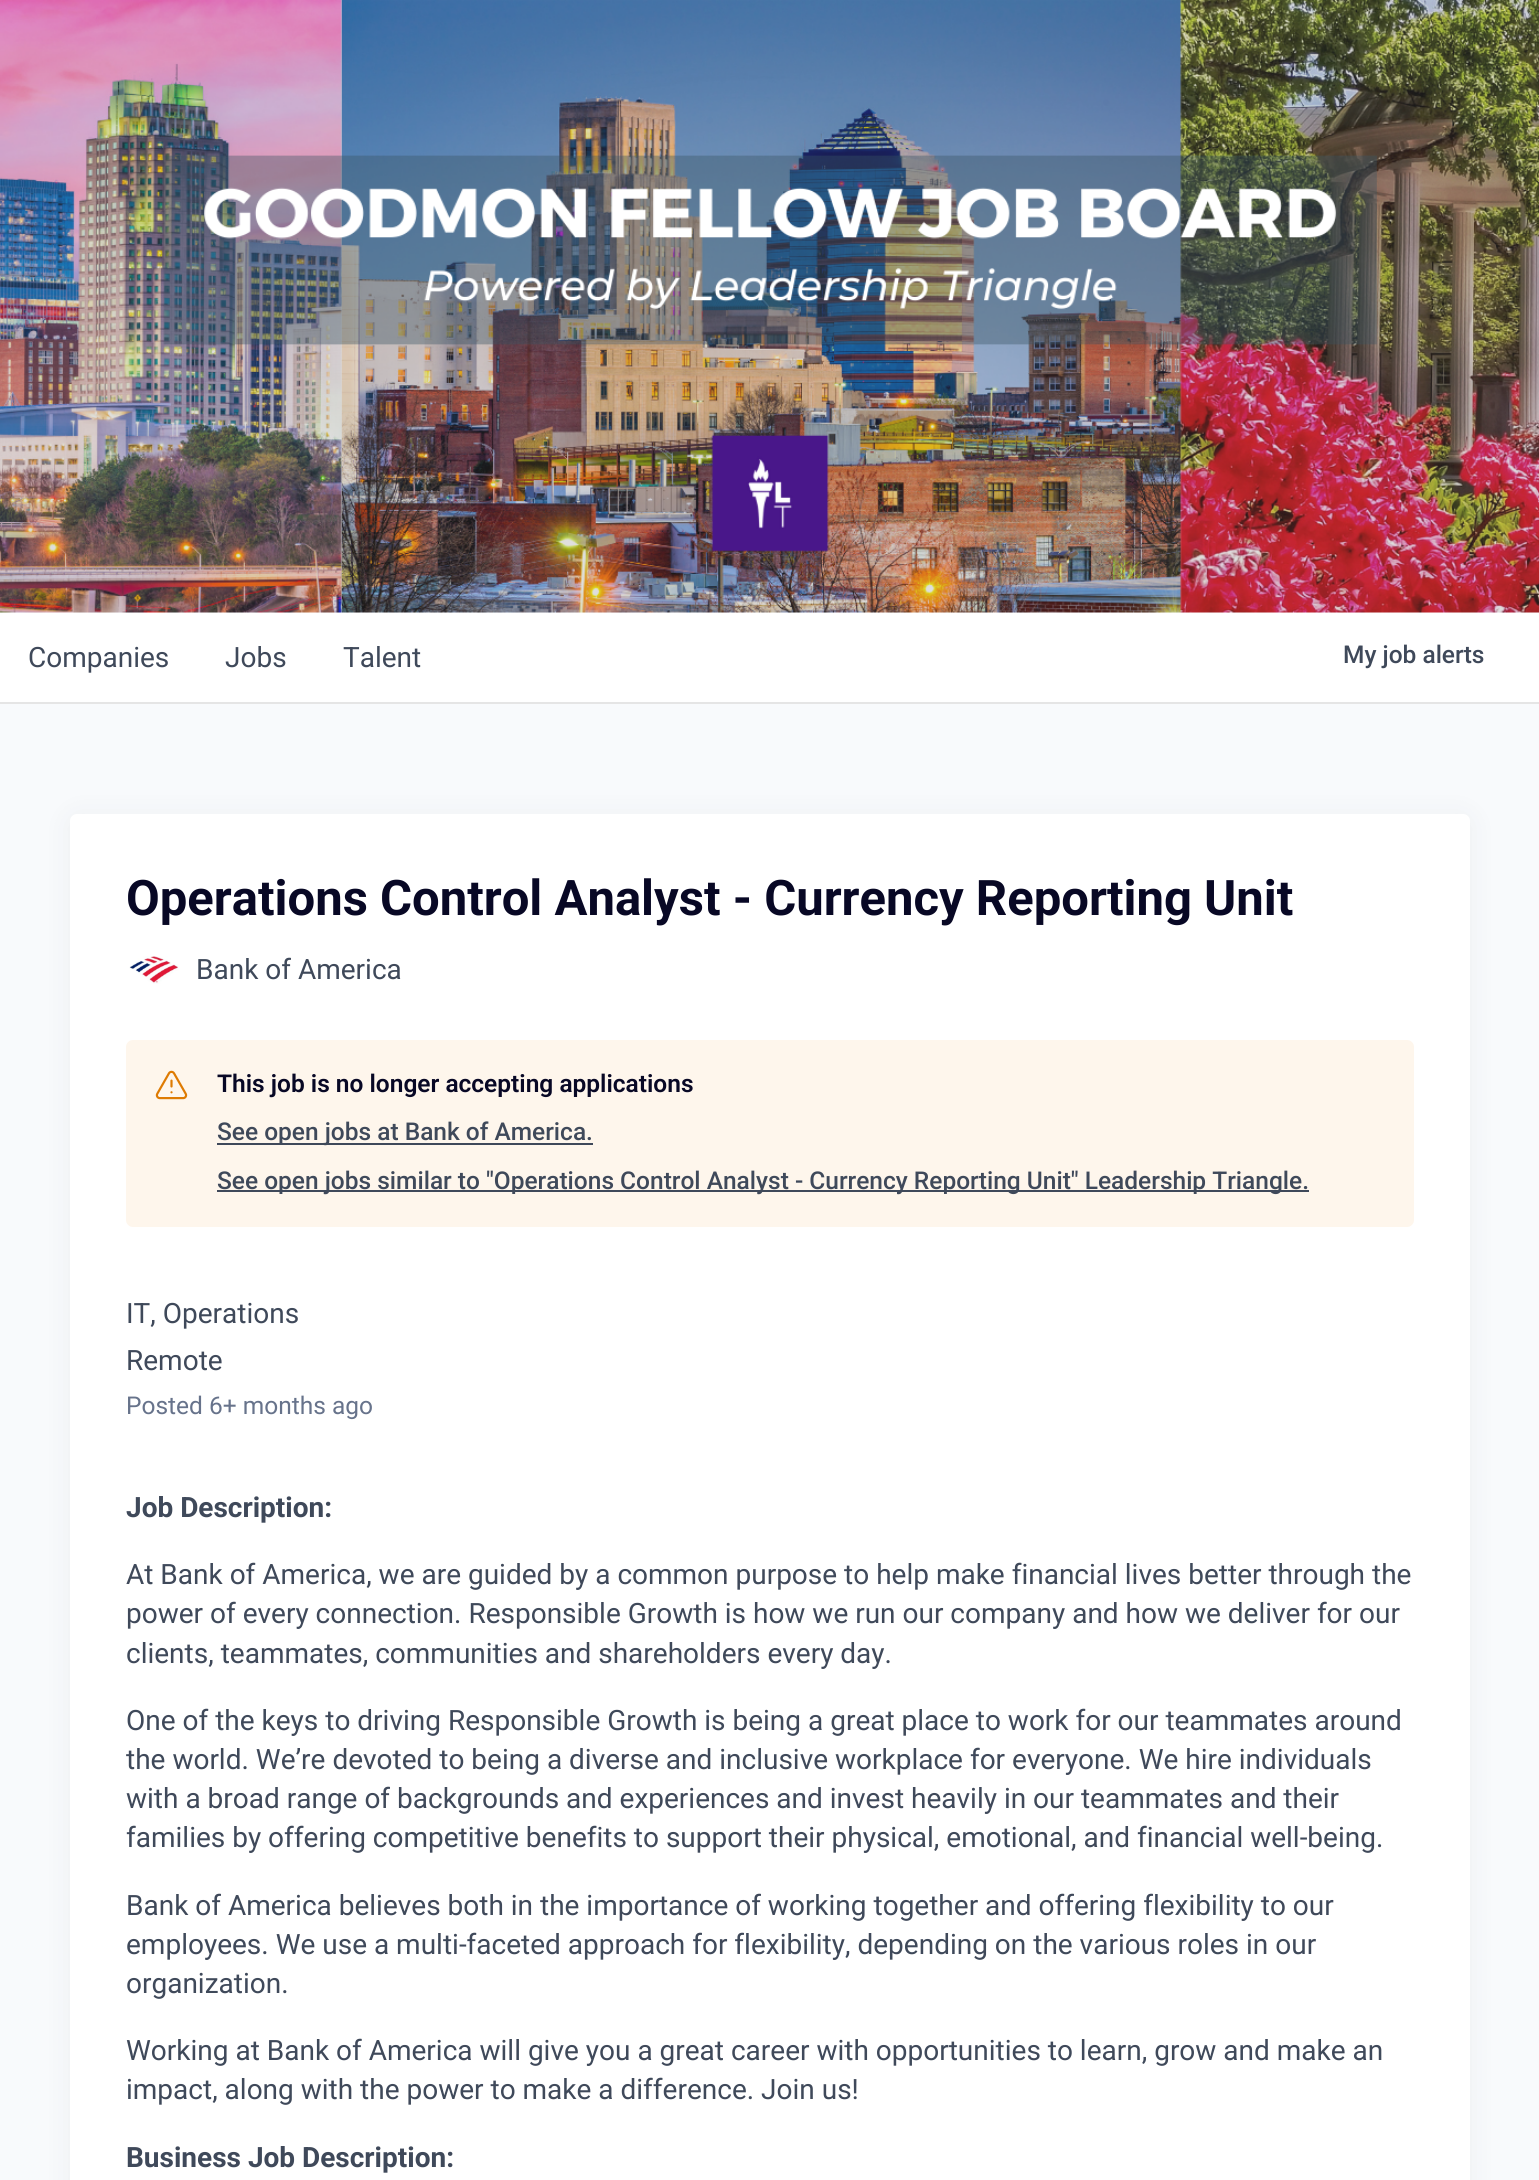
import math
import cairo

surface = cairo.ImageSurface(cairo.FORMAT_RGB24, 1539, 2180)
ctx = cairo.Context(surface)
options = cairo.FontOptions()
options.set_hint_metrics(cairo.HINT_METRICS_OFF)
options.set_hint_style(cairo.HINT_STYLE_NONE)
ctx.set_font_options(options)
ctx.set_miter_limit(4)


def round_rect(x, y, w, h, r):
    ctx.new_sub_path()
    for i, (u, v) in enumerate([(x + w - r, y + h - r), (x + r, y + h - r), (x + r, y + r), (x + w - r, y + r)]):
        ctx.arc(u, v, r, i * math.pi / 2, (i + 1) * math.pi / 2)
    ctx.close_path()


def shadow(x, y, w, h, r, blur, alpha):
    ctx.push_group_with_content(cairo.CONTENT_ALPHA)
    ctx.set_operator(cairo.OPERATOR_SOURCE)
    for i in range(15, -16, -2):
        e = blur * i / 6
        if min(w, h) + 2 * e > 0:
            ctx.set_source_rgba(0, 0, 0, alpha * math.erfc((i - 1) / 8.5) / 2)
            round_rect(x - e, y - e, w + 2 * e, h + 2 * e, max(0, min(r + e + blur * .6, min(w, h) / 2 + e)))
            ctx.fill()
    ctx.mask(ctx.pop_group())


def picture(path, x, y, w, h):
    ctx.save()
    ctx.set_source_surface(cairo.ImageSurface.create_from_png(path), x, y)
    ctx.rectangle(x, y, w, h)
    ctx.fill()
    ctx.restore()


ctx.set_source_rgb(0.969, 0.98, 0.988)
ctx.paint()
picture("img1.png", 0, 0, 1539, 613)
ctx.set_source_rgb(0.898, 0.898, 0.898)
ctx.rectangle(0, 702, 1539, 2)
ctx.fill()
ctx.set_source_rgb(1, 1, 1)
ctx.rectangle(0, 613, 1539, 89)
ctx.fill()
ctx.select_font_face("Roboto")
ctx.set_font_size(28)
ctx.set_source_rgb(0.247, 0.286, 0.353)
ctx.move_to(28, 667)
ctx.show_text("Companies")
ctx.move_to(225, 667)
ctx.show_text("Jobs")
ctx.move_to(343, 667)
ctx.show_text("Talent")
ctx.select_font_face("Roboto Medium")
ctx.set_font_size(24.5)
ctx.move_to(1343, 663)
ctx.show_text("My job alerts")
ctx.set_source_rgb(0.106, 0.141, 0.196)
shadow(70, 816, 1400, 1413, 7, 14, 0.06)
ctx.set_source_rgb(1, 1, 1)
round_rect(70, 814, 1400, 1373, 7)
ctx.fill()
ctx.select_font_face("Roboto", cairo.FONT_SLANT_NORMAL, cairo.FONT_WEIGHT_BOLD)
ctx.set_font_size(49)
ctx.set_source_rgb(0.035, 0.035, 0.145)
ctx.move_to(126, 915)
ctx.show_text("Operations Control Analyst - Currency Reporting Unit")
picture("img2.png", 129, 956, 50, 28)
ctx.select_font_face("Roboto")
ctx.set_font_size(28)
ctx.set_source_rgb(0.247, 0.286, 0.353)
ctx.move_to(196, 979)
ctx.show_text("Bank of America")
ctx.set_source_rgb(0.996, 0.961, 0.925)
round_rect(126, 1040, 1288, 187, 7)
ctx.fill()
picture("img3.png", 155, 1070, 33, 30)
ctx.select_font_face("Roboto SemiBold")
ctx.set_font_size(24.5)
ctx.set_source_rgb(0.035, 0.035, 0.145)
ctx.move_to(217, 1092)
ctx.show_text("This job is no longer accepting applications")
ctx.set_source_rgb(0.247, 0.286, 0.353)
ctx.rectangle(217, 1143, 376, 2)
ctx.fill()
ctx.select_font_face("Roboto Medium")
ctx.move_to(217, 1140)
ctx.show_text("See open jobs at Bank of America.")
ctx.rectangle(217, 1190, 1092, 2)
ctx.fill()
ctx.move_to(217, 1189)
ctx.show_text("See open jobs similar to \"Operations Control Analyst - Currency Reporting Unit\" Leadership Triangle.")
ctx.select_font_face("Roboto")
ctx.set_font_size(28)
ctx.move_to(126, 1323)
ctx.show_text("IT, Operations")
ctx.move_to(126, 1370)
ctx.show_text("Remote")
ctx.set_font_size(24.5)
ctx.set_source_rgb(0.404, 0.451, 0.545)
ctx.move_to(126, 1414)
ctx.show_text("Posted 6+ months ago")
ctx.select_font_face("Roboto", cairo.FONT_SLANT_NORMAL, cairo.FONT_WEIGHT_BOLD)
ctx.set_font_size(28)
ctx.set_source_rgb(0.247, 0.286, 0.353)
ctx.move_to(126, 1517)
ctx.show_text("Job Description:")
ctx.select_font_face("Roboto")
ctx.move_to(126, 1584)
ctx.show_text("At Bank of America, we are guided by a common purpose to help make financial lives better through the")
ctx.move_to(126, 1623)
ctx.show_text("power of every connection. Responsible Growth is how we run our company and how we deliver for our")
ctx.move_to(126, 1663)
ctx.show_text("clients, teammates, communities and shareholders every day.")
ctx.move_to(126, 1730)
ctx.show_text("One of the keys to driving Responsible Growth is being a great place to work for our teammates around")
ctx.move_to(126, 1769)
ctx.show_text("the world. We’re devoted to being a diverse and inclusive workplace for everyone. We hire individuals")
ctx.move_to(126, 1808)
ctx.show_text("with a broad range of backgrounds and experiences and invest heavily in our teammates and their")
ctx.move_to(126, 1847)
ctx.show_text("families by offering competitive benefits to support their physical, emotional, and financial well-being.")
ctx.move_to(126, 1915)
ctx.show_text("Bank of America believes both in the importance of working together and offering flexibility to our")
ctx.move_to(126, 1954)
ctx.show_text("employees. We use a multi-faceted approach for flexibility, depending on the various roles in our")
ctx.move_to(126, 1993)
ctx.show_text("organization.")
ctx.move_to(126, 2060)
ctx.show_text("Working at Bank of America will give you a great career with opportunities to learn, grow and make an")
ctx.move_to(126, 2099)
ctx.show_text("impact, along with the power to make a difference. Join us!")
ctx.select_font_face("Roboto", cairo.FONT_SLANT_NORMAL, cairo.FONT_WEIGHT_BOLD)
ctx.move_to(126, 2167)
ctx.show_text("Business Job Description:")
surface.write_to_png("page.png")
